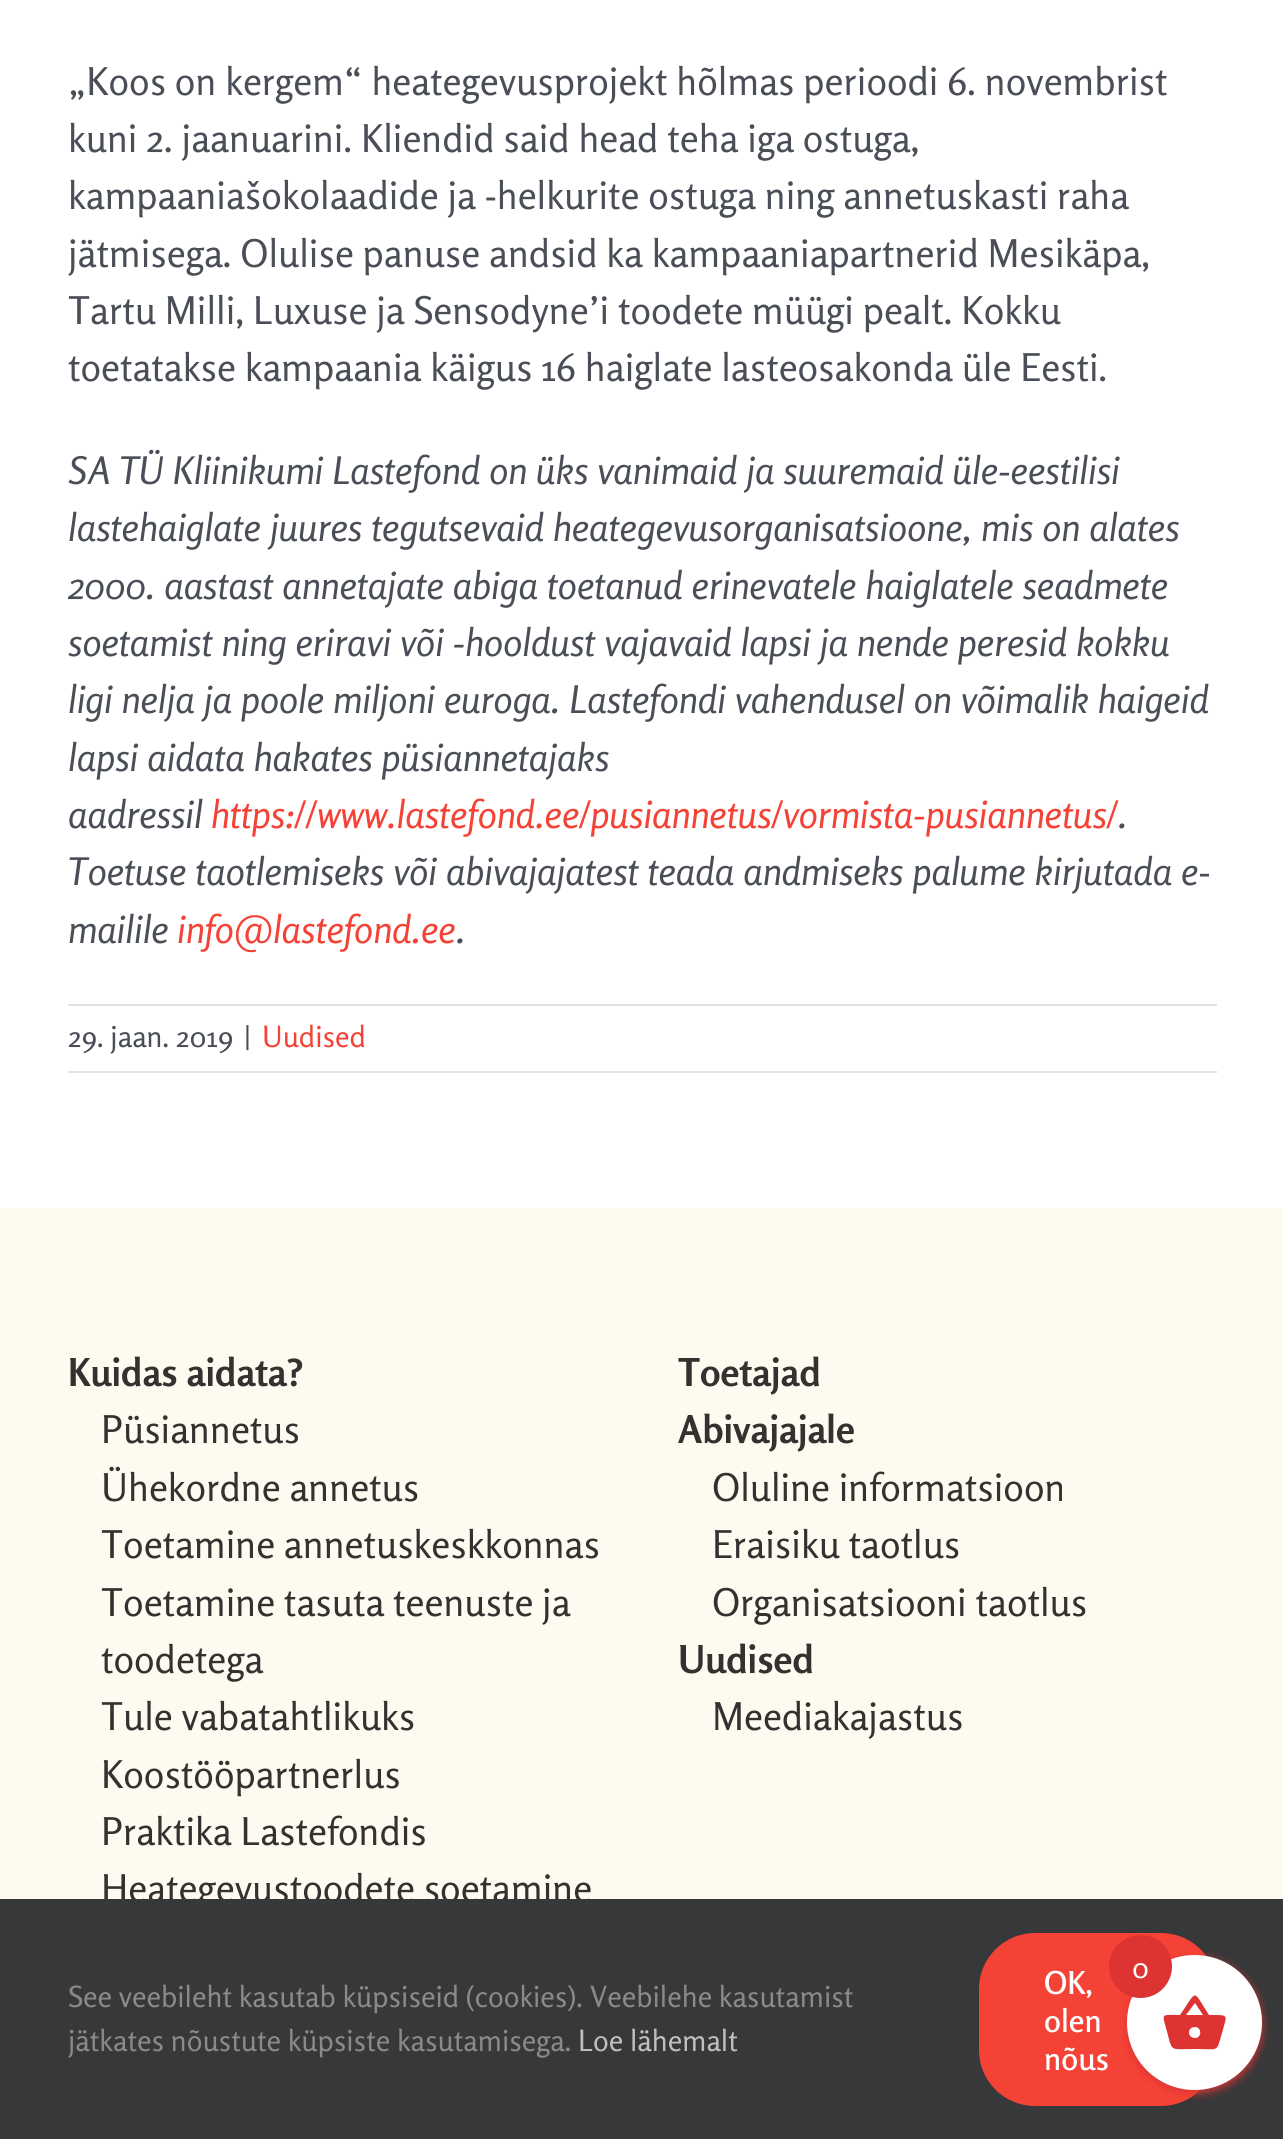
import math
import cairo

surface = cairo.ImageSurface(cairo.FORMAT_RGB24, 1283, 2139)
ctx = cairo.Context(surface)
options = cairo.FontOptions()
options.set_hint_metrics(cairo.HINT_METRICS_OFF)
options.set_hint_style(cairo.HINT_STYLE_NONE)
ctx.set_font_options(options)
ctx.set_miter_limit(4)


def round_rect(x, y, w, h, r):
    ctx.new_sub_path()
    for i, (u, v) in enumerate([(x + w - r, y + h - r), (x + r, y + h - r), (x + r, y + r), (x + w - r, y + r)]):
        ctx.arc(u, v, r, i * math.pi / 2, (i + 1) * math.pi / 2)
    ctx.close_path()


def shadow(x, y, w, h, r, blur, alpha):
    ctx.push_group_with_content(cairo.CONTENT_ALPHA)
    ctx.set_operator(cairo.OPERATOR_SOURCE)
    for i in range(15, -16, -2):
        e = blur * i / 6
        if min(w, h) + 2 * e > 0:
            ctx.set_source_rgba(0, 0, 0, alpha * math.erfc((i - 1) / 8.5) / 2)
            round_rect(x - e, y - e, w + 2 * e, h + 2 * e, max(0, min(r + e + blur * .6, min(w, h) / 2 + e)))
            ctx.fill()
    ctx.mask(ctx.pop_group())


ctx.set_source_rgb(1, 1, 1)
ctx.paint()
ctx.select_font_face("Rosario")
ctx.set_font_size(38.25)
ctx.set_source_rgb(0.29, 0.306, 0.341)
ctx.move_to(68, 95)
ctx.show_text("„Koos on kergem“ heategevusprojekt hõlmas perioodi 6. novembrist")
ctx.move_to(68, 152)
ctx.show_text("kuni 2. jaanuarini. Kliendid said head teha iga ostuga,")
ctx.move_to(68, 209)
ctx.show_text("kampaaniašokolaadide ja -helkurite ostuga ning annetuskasti raha")
ctx.move_to(68, 267)
ctx.show_text("jätmisega. Olulise panuse andsid ka kampaaniapartnerid Mesikäpa,")
ctx.move_to(68, 324)
ctx.show_text("Tartu Milli, Luxuse ja Sensodyne’i toodete müügi pealt. Kokku")
ctx.move_to(68, 381)
ctx.show_text("toetatakse kampaania käigus 16 haiglate lasteosakonda üle Eesti.")
ctx.select_font_face("Rosario", cairo.FONT_SLANT_ITALIC)
ctx.move_to(68, 484)
ctx.show_text("SA TÜ Kliinikumi Lastefond on üks vanimaid ja suuremaid üle-eestilisi")
ctx.move_to(68, 541)
ctx.show_text("lastehaiglate juures tegutsevaid heategevusorganisatsioone, mis on alates")
ctx.move_to(68, 599)
ctx.show_text("2000. aastast annetajate abiga toetanud erinevatele haiglatele seadmete")
ctx.move_to(68, 656)
ctx.show_text("soetamist ning eriravi või -hooldust vajavaid lapsi ja nende peresid kokku")
ctx.move_to(68, 713)
ctx.show_text("ligi nelja ja poole miljoni euroga. Lastefondi vahendusel on võimalik haigeid")
ctx.move_to(68, 771)
ctx.show_text("lapsi aidata hakates püsiannetajaks")
ctx.move_to(68, 828)
ctx.show_text("aadressil")
ctx.set_source_rgb(0.957, 0.263, 0.212)
ctx.move_to(211, 828)
ctx.show_text("https://www.lastefond.ee/pusiannetus/vormista-pusiannetus/")
ctx.set_source_rgb(0.29, 0.306, 0.341)
ctx.move_to(1118, 828)
ctx.show_text(".")
ctx.move_to(68, 885)
ctx.show_text("Toetuse taotlemiseks või abivajajatest teada andmiseks palume kirjutada e-")
ctx.move_to(68, 943)
ctx.show_text("mailile")
ctx.set_source_rgb(0.957, 0.263, 0.212)
ctx.move_to(177, 943)
ctx.show_text("info@lastefond.ee")
ctx.set_source_rgb(0.29, 0.306, 0.341)
ctx.move_to(456, 943)
ctx.show_text(".")
ctx.set_source_rgb(0.886, 0.886, 0.886)
ctx.rectangle(68, 1004, 1149, 2)
ctx.fill()
ctx.rectangle(68, 1071, 1149, 2)
ctx.fill()
ctx.select_font_face("Rosario")
ctx.set_font_size(29.25)
ctx.set_source_rgb(0.29, 0.306, 0.341)
ctx.move_to(68, 1047)
ctx.show_text("29. jaan. 2019")
ctx.move_to(244, 1047)
ctx.show_text("|")
ctx.set_source_rgb(0.957, 0.263, 0.212)
ctx.move_to(262, 1047)
ctx.show_text("Uudised")
ctx.set_source_rgb(1, 0.98, 0.941)
ctx.rectangle(0, 1208, 1283, 691)
ctx.fill()
ctx.select_font_face("Rosario", cairo.FONT_SLANT_NORMAL, cairo.FONT_WEIGHT_BOLD)
ctx.set_font_size(38.25)
ctx.set_source_rgb(0.2, 0.196, 0.188)
ctx.move_to(68, 1386)
ctx.show_text("Kuidas aidata?")
ctx.select_font_face("Rosario")
ctx.move_to(101, 1443)
ctx.show_text("Püsiannetus")
ctx.move_to(101, 1501)
ctx.show_text("Ühekordne annetus")
ctx.move_to(101, 1558)
ctx.show_text("Toetamine annetuskeskkonnas")
ctx.move_to(101, 1616)
ctx.show_text("Toetamine tasuta teenuste ja")
ctx.move_to(101, 1673)
ctx.show_text("toodetega")
ctx.move_to(101, 1730)
ctx.show_text("Tule vabatahtlikuks")
ctx.move_to(101, 1788)
ctx.show_text("Koostööpartnerlus")
ctx.move_to(101, 1845)
ctx.show_text("Praktika Lastefondis")
ctx.move_to(101, 1902)
ctx.show_text("Heategevustoodete soetamine")
ctx.select_font_face("Rosario", cairo.FONT_SLANT_NORMAL, cairo.FONT_WEIGHT_BOLD)
ctx.move_to(678, 1386)
ctx.show_text("Toetajad")
ctx.move_to(678, 1443)
ctx.show_text("Abivajajale")
ctx.select_font_face("Rosario")
ctx.move_to(712, 1501)
ctx.show_text("Oluline informatsioon")
ctx.move_to(712, 1558)
ctx.show_text("Eraisiku taotlus")
ctx.move_to(712, 1616)
ctx.show_text("Organisatsiooni taotlus")
ctx.select_font_face("Rosario", cairo.FONT_SLANT_NORMAL, cairo.FONT_WEIGHT_BOLD)
ctx.move_to(678, 1673)
ctx.show_text("Uudised")
ctx.select_font_face("Rosario")
ctx.move_to(712, 1730)
ctx.show_text("Meediakajastus")
ctx.set_source_rgb(0.212, 0.22, 0.224)
ctx.rectangle(0, 1899, 1283, 240)
ctx.fill()
ctx.set_font_size(29.25)
ctx.set_source_rgb(0.549, 0.537, 0.537)
ctx.move_to(68, 2007)
ctx.show_text("See veebileht kasutab küpsiseid (cookies). Veebilehe kasutamist")
ctx.move_to(68, 2051)
ctx.show_text("jätkates nõustute küpsiste kasutamisega.")
ctx.set_source_rgb(0.749, 0.749, 0.749)
ctx.move_to(578, 2051)
ctx.show_text("Loe lähemalt")
ctx.set_source_rgb(0.957, 0.263, 0.212)
round_rect(979, 1933, 238, 173, 56)
ctx.fill()
ctx.select_font_face("Rosario SemiBold")
ctx.set_font_size(31.5)
ctx.set_source_rgb(1, 1, 1)
ctx.move_to(1044, 1994)
ctx.show_text("OK,")
ctx.move_to(1044, 2032)
ctx.show_text("olen")
ctx.move_to(1044, 2070)
ctx.show_text("nõus")
ctx.set_source_rgb(0.867, 0.2, 0.2)
shadow(1127, 1958, 135, 135, 67.5, 4.5, 1)
ctx.set_source_rgb(1, 1, 1)
ctx.arc(1194.5, 2022.5, 67.5, 0, 2 * math.pi)
ctx.fill()
ctx.set_source_rgb(0.867, 0.2, 0.2)
ctx.new_path()
ctx.move_to(1195, 2038)
ctx.curve_to(1202, 2038, 1202, 2027, 1195, 2027)
ctx.curve_to(1187, 2027, 1187, 2038, 1195, 2038)
ctx.close_path()
ctx.move_to(1186, 2015)
ctx.line_to(1203, 2015)
ctx.line_to(1195, 2003)
ctx.close_path()
ctx.move_to(1209, 2015)
ctx.curve_to(1230, 2015, 1227, 2014, 1222, 2033)
ctx.curve_to(1216, 2053, 1220, 2049, 1195, 2049)
ctx.curve_to(1168, 2049, 1173, 2053, 1166, 2028)
ctx.curve_to(1162, 2013, 1161, 2015, 1180, 2015)
ctx.curve_to(1198, 1989, 1192, 1989, 1209, 2015)
ctx.close_path()
ctx.fill()
ctx.arc(1140.5, 1966.5, 31.5, 0, 2 * math.pi)
ctx.fill()
ctx.select_font_face("Rosario")
ctx.set_font_size(29.25)
ctx.set_source_rgb(1, 1, 1)
ctx.move_to(1132, 1978)
ctx.show_text("0")
surface.write_to_png("page.png")
